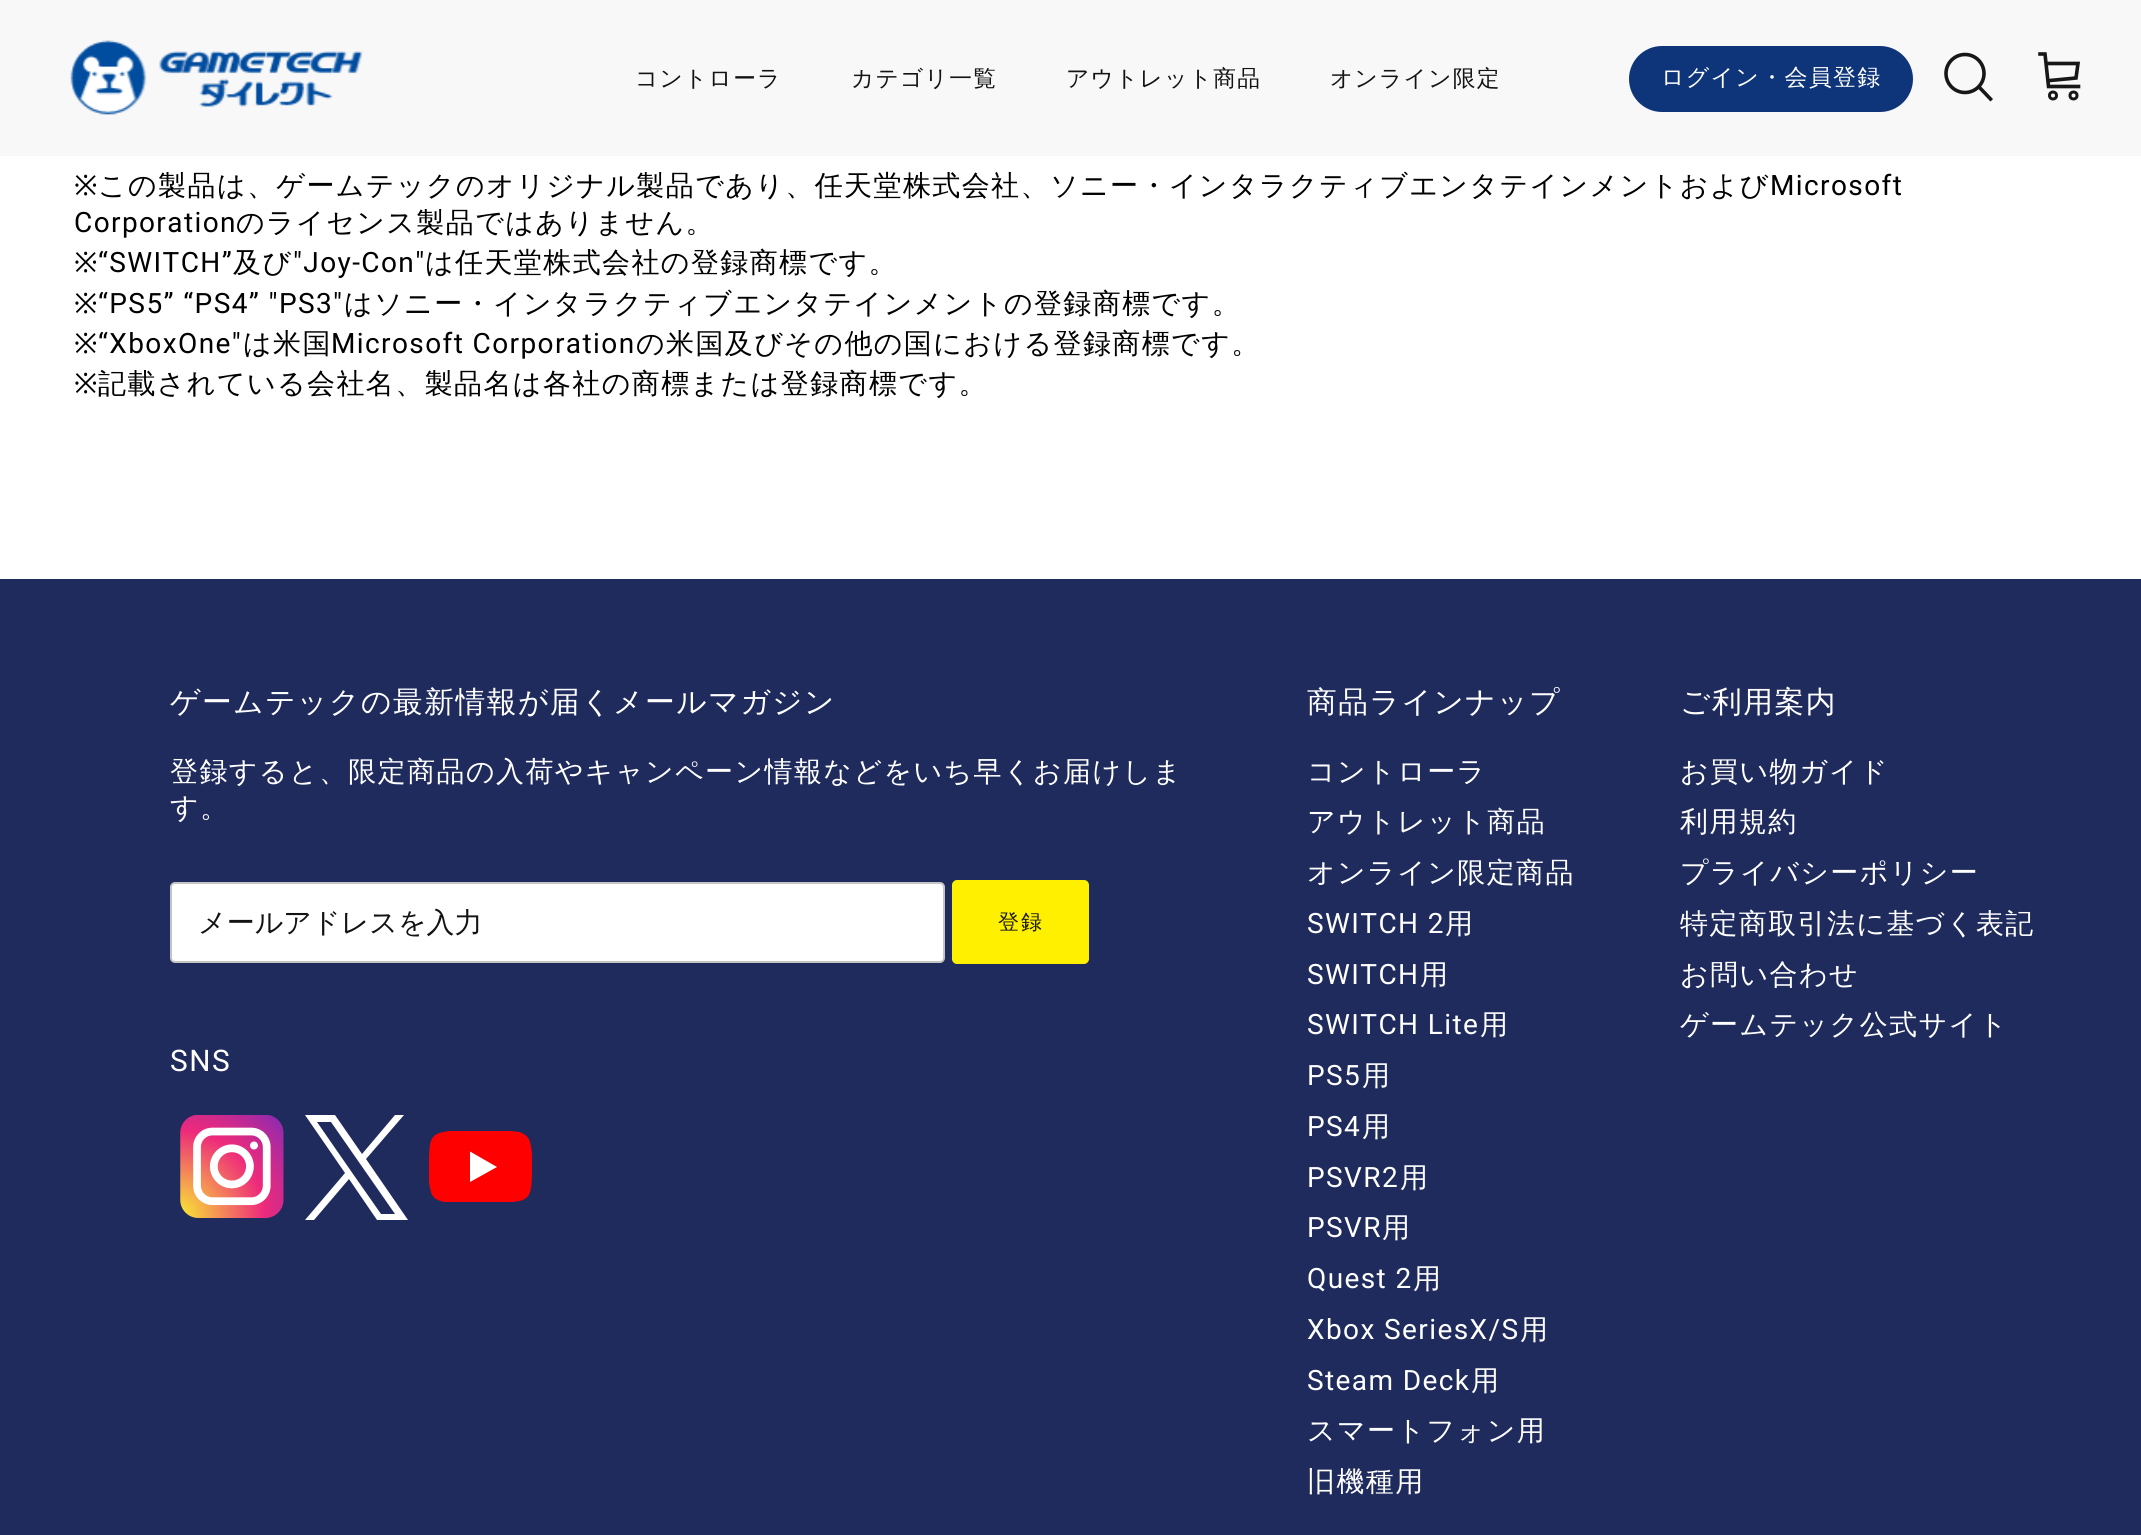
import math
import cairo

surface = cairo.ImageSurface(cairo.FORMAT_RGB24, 2141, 1535)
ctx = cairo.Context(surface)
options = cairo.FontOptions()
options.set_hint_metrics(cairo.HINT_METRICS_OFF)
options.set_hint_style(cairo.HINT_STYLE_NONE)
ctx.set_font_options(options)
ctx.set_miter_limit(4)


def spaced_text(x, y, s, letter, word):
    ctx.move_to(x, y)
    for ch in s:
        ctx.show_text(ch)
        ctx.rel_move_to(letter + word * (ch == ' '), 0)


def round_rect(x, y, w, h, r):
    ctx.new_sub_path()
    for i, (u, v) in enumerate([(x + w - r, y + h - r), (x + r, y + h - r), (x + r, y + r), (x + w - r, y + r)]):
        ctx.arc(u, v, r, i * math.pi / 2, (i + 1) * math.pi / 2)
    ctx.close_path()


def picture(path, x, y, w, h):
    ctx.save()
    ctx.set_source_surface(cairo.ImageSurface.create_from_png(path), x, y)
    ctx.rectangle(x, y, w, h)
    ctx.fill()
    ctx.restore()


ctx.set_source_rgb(1, 1, 1)
ctx.paint()
ctx.set_source_rgb(0.969, 0.969, 0.969)
ctx.rectangle(0, 0, 2141, 156)
ctx.fill()
picture("img1.png", 70, 40, 293, 75)
ctx.select_font_face("WenQuanYi Zen Hei Medium")
ctx.set_font_size(22.75)
ctx.set_source_rgb(0.075, 0.075, 0.075)
spaced_text(635, 86, "コントローラ", 1.25, 0)
spaced_text(851, 86, "カテゴリ一覧", 1.25, 0)
spaced_text(1066, 86, "アウトレット商品", 1.25, 0)
spaced_text(1330, 86, "オンライン限定", 1.25, 0)
ctx.set_source_rgb(0.055, 0.204, 0.475)
round_rect(1631, 48, 280, 62, 31)
ctx.fill_preserve()
ctx.set_line_width(4)
ctx.stroke()
ctx.set_font_size(23)
ctx.set_source_rgb(1, 1, 1)
spaced_text(1661, 85, "ログイン・会員登録", 1.25, 0)
ctx.new_path()
ctx.arc(1965, 73.5, 19, 0, 2 * math.pi)
ctx.set_source_rgb(0.09, 0.09, 0.09)
ctx.set_line_width(3.6)
ctx.stroke()
ctx.new_path()
ctx.move_to(1980, 88)
ctx.line_to(1990.5, 99)
ctx.set_line_cap(cairo.LINE_CAP_SQUARE)
ctx.stroke()
ctx.new_path()
ctx.move_to(2040, 54)
ctx.line_to(2045, 54)
ctx.line_to(2048.5, 86.5)
ctx.line_to(2078.5, 86.5)
ctx.move_to(2046.5, 63.5)
ctx.line_to(2078, 63.5)
ctx.line_to(2076, 78)
ctx.line_to(2050, 80.5)
ctx.stroke()
ctx.arc(2053, 95.5, 3.5, 0, 2 * math.pi)
ctx.set_line_width(3)
ctx.set_line_cap(cairo.LINE_CAP_BUTT)
ctx.stroke()
ctx.arc(2073.5, 95.5, 3.5, 0, 2 * math.pi)
ctx.stroke()
ctx.select_font_face("Noto Sans")
ctx.set_font_size(28)
ctx.set_source_rgb(0, 0, 0)
spaced_text(74, 195, "※", 1.4, 0)
ctx.select_font_face("WenQuanYi Zen Hei Medium")
spaced_text(98, 195, "この製品は、ゲームテックのオリジナル製品であり、任天堂株式会社、ソニー・インタラクティブエンタテインメントおよび", 1.4, 0)
ctx.select_font_face("Roboto")
spaced_text(1770, 195, "Microsoft", 1.4, 0)
spaced_text(74, 232, "Corporation", 1.4, 0)
ctx.select_font_face("WenQuanYi Zen Hei Medium")
spaced_text(236, 232, "のライセンス製品ではありません。", 1.4, 0)
ctx.select_font_face("Noto Sans")
spaced_text(74, 272, "※", 1.4, 0)
ctx.select_font_face("Roboto")
spaced_text(98, 272, "“SWITCH”", 1.4, 0)
ctx.select_font_face("WenQuanYi Zen Hei Medium")
spaced_text(233, 272, "及び", 1.4, 0)
ctx.select_font_face("Roboto")
spaced_text(293, 272, "\"Joy-Con\"", 1.4, 0)
ctx.select_font_face("WenQuanYi Zen Hei Medium")
spaced_text(425, 272, "は任天堂株式会社の登録商標です。", 1.4, 0)
ctx.select_font_face("Noto Sans")
spaced_text(74, 313, "※", 1.4, 0)
ctx.select_font_face("Roboto")
spaced_text(98, 313, "“PS5” “PS4” \"PS3\"", 1.4, 0)
ctx.select_font_face("WenQuanYi Zen Hei Medium")
spaced_text(344, 313, "はソニー・インタラクティブエンタテインメントの登録商標です。", 1.4, 0)
ctx.select_font_face("Noto Sans")
spaced_text(74, 353, "※", 1.4, 0)
ctx.select_font_face("Roboto")
spaced_text(98, 353, "“XboxOne\"", 1.4, 0)
ctx.select_font_face("WenQuanYi Zen Hei Medium")
spaced_text(243, 353, "は米国", 1.4, 0)
ctx.select_font_face("Roboto")
spaced_text(331, 353, "Microsoft Corporation", 1.4, 0)
ctx.select_font_face("WenQuanYi Zen Hei Medium")
spaced_text(636, 353, "の米国及びその他の国における登録商標です。", 1.4, 0)
ctx.select_font_face("Noto Sans")
spaced_text(74, 393, "※", 1.4, 0)
ctx.select_font_face("WenQuanYi Zen Hei Medium")
spaced_text(98, 393, "記載されている会社名、製品名は各社の商標または登録商標です。", 1.4, 0)
ctx.set_source_rgb(0.122, 0.169, 0.365)
ctx.rectangle(0, 579, 2141, 956)
ctx.fill()
ctx.set_font_size(29.75)
ctx.set_source_rgb(1, 1, 1)
spaced_text(170, 712, "ゲームテックの最新情報が届くメールマガジン", 1.5, 0)
ctx.set_font_size(28)
spaced_text(170, 781, "登録すると、限定商品の入荷やキャンペーン情報などをいち早くお届けしま", 1.4, 0)
spaced_text(170, 817, "す。", 1.4, 0)
round_rect(171, 883, 773, 79, 4)
ctx.fill_preserve()
ctx.set_source_rgb(0.769, 0.769, 0.769)
ctx.set_line_width(2)
ctx.stroke()
ctx.set_source_rgb(0.075, 0.075, 0.075)
ctx.move_to(198, 932)
ctx.show_text("メールアドレスを入力")
ctx.set_source_rgb(1, 0.941, 0)
round_rect(953, 881, 135, 82, 4)
ctx.fill_preserve()
ctx.stroke()
ctx.set_font_size(21)
ctx.set_source_rgb(0.106, 0.106, 0.106)
spaced_text(998, 929, "登録", 2, 0)
ctx.select_font_face("Roboto")
ctx.set_font_size(29.75)
ctx.set_source_rgb(1, 1, 1)
spaced_text(170, 1071, "SNS", 1.5, 0)
picture("img2.png", 180, 1115, 104, 103)
ctx.new_path()
ctx.move_to(366, 1159)
ctx.line_to(404, 1115)
ctx.line_to(395, 1115)
ctx.line_to(362, 1154)
ctx.line_to(335, 1115)
ctx.line_to(305, 1115)
ctx.line_to(345, 1173)
ctx.line_to(305, 1220)
ctx.line_to(314, 1220)
ctx.line_to(349, 1179)
ctx.line_to(377, 1220)
ctx.line_to(408, 1220)
ctx.close_path()
ctx.move_to(353, 1174)
ctx.line_to(317, 1122)
ctx.line_to(331, 1122)
ctx.line_to(395, 1214)
ctx.line_to(381, 1214)
ctx.close_path()
ctx.fill()
ctx.save()
ctx.rectangle(429, 1131, 103, 71)
ctx.clip()
ctx.set_source_rgb(1, 0, 0)
ctx.new_path()
ctx.move_to(530, 1142)
ctx.curve_to(529, 1138, 526, 1135, 522, 1133)
ctx.curve_to(517, 1131, 510, 1131, 504, 1131)
ctx.line_to(475, 1131)
ctx.line_to(450, 1131)
ctx.curve_to(430, 1133, 430, 1139, 429, 1157)
ctx.curve_to(428, 1169, 428, 1181, 431, 1192)
ctx.curve_to(432, 1196, 435, 1199, 438, 1200)
ctx.curve_to(444, 1203, 451, 1202, 456, 1203)
ctx.line_to(482, 1203)
ctx.line_to(511, 1202)
ctx.curve_to(530, 1201, 531, 1195, 532, 1176)
ctx.curve_to(532, 1165, 533, 1153, 530, 1142)
ctx.close_path()
ctx.fill()
ctx.restore()
ctx.new_path()
ctx.move_to(470, 1182)
ctx.line_to(497, 1167)
ctx.line_to(470, 1151.5)
ctx.close_path()
ctx.fill()
ctx.select_font_face("WenQuanYi Zen Hei Medium")
spaced_text(1307, 712, "商品ラインナップ", 1.5, 0)
ctx.set_font_size(28)
spaced_text(1307, 781, "コントローラ", 1.4, 0)
spaced_text(1307, 831, "アウトレット商品", 1.4, 0)
spaced_text(1307, 882, "オンライン限定商品", 1.4, 0)
ctx.select_font_face("Roboto")
spaced_text(1307, 933, "SWITCH 2", 1.4, 0)
ctx.select_font_face("WenQuanYi Zen Hei Medium")
spaced_text(1445, 933, "用", 1.4, 0)
ctx.select_font_face("Roboto")
spaced_text(1307, 984, "SWITCH", 1.4, 0)
ctx.select_font_face("WenQuanYi Zen Hei Medium")
spaced_text(1420, 984, "用", 1.4, 0)
ctx.select_font_face("Roboto")
spaced_text(1307, 1034, "SWITCH Lite", 1.4, 0)
ctx.select_font_face("WenQuanYi Zen Hei Medium")
spaced_text(1480, 1034, "用", 1.4, 0)
ctx.select_font_face("Roboto")
spaced_text(1307, 1085, "PS5", 1.4, 0)
ctx.select_font_face("WenQuanYi Zen Hei Medium")
spaced_text(1362, 1085, "用", 1.4, 0)
ctx.select_font_face("Roboto")
spaced_text(1307, 1136, "PS4", 1.4, 0)
ctx.select_font_face("WenQuanYi Zen Hei Medium")
spaced_text(1362, 1136, "用", 1.4, 0)
ctx.select_font_face("Roboto")
spaced_text(1307, 1187, "PSVR2", 1.4, 0)
ctx.select_font_face("WenQuanYi Zen Hei Medium")
spaced_text(1400, 1187, "用", 1.4, 0)
ctx.select_font_face("Roboto")
spaced_text(1307, 1237, "PSVR", 1.4, 0)
ctx.select_font_face("WenQuanYi Zen Hei Medium")
spaced_text(1382, 1237, "用", 1.4, 0)
ctx.select_font_face("Roboto")
spaced_text(1307, 1288, "Quest 2", 1.4, 0)
ctx.select_font_face("WenQuanYi Zen Hei Medium")
spaced_text(1413, 1288, "用", 1.4, 0)
ctx.select_font_face("Roboto")
spaced_text(1307, 1339, "Xbox SeriesX/S", 1.4, 0)
ctx.select_font_face("WenQuanYi Zen Hei Medium")
spaced_text(1520, 1339, "用", 1.4, 0)
ctx.select_font_face("Roboto")
spaced_text(1307, 1390, "Steam Deck", 1.4, 0)
ctx.select_font_face("WenQuanYi Zen Hei Medium")
spaced_text(1471, 1390, "用", 1.4, 0)
spaced_text(1307, 1440, "スマートフォン用", 1.4, 0)
spaced_text(1307, 1491, "旧機種用", 1.4, 0)
ctx.set_font_size(29.75)
spaced_text(1680, 712, "ご利用案内", 1.5, 0)
ctx.set_font_size(28)
spaced_text(1680, 781, "お買い物ガイド", 1.4, 0)
spaced_text(1680, 831, "利用規約", 1.4, 0)
spaced_text(1680, 882, "プライバシーポリシー", 1.4, 0)
spaced_text(1680, 933, "特定商取引法に基づく表記", 1.4, 0)
spaced_text(1680, 984, "お問い合わせ", 1.4, 0)
spaced_text(1680, 1034, "ゲームテック公式サイト", 1.4, 0)
surface.write_to_png("page.png")
